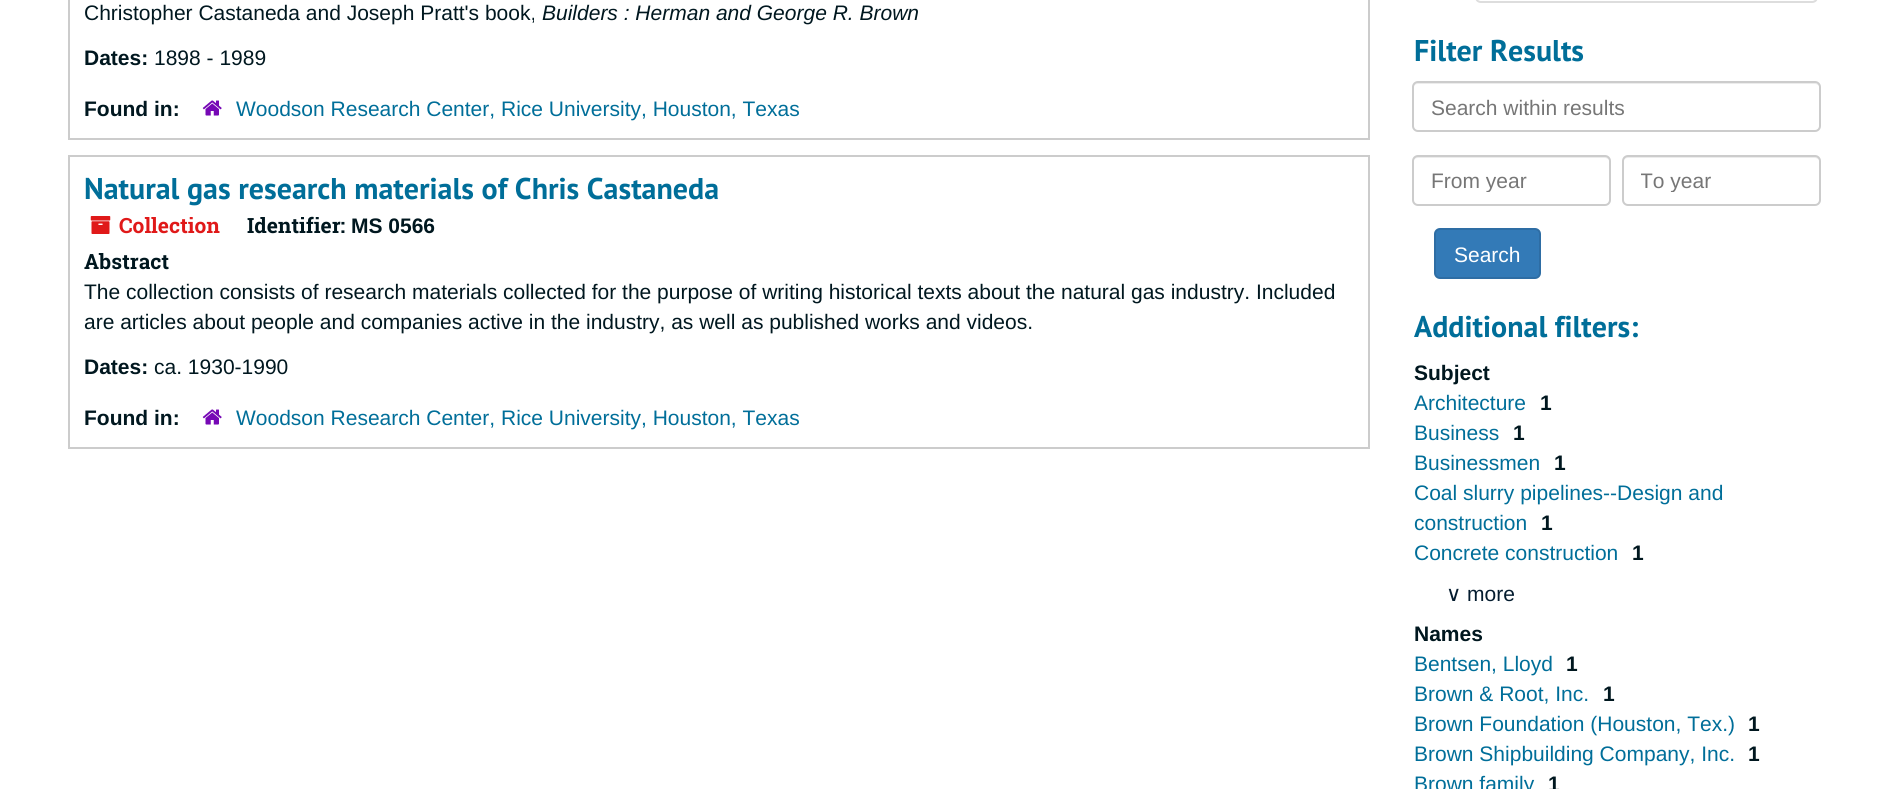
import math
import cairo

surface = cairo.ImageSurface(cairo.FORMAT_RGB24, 1885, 789)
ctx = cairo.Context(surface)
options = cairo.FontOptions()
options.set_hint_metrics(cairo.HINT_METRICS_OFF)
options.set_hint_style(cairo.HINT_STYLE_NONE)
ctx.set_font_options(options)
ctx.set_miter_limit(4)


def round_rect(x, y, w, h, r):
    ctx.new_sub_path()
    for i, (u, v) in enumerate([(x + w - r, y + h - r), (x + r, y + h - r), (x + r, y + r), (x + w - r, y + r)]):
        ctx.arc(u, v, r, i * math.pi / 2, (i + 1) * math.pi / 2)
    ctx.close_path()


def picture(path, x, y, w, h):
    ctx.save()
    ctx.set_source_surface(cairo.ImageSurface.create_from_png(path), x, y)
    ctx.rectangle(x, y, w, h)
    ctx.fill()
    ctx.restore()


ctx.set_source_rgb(1, 1, 1)
ctx.paint()
ctx.rectangle(69, -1, 1300, 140)
ctx.set_source_rgb(0.8, 0.8, 0.8)
ctx.stroke()
ctx.select_font_face("Liberation Sans")
ctx.set_font_size(21)
ctx.set_source_rgb(0, 0.09, 0.122)
ctx.move_to(84, 20)
ctx.show_text("Christopher Castaneda and Joseph Pratt's book,")
ctx.select_font_face("Liberation Sans", cairo.FONT_SLANT_ITALIC)
ctx.move_to(542, 20)
ctx.show_text("Builders : Herman and George R. Brown")
ctx.select_font_face("Liberation Sans", cairo.FONT_SLANT_NORMAL, cairo.FONT_WEIGHT_BOLD)
ctx.move_to(84, 65)
ctx.show_text("Dates:")
ctx.select_font_face("Liberation Sans")
ctx.move_to(154, 65)
ctx.show_text("1898 - 1989")
ctx.select_font_face("Liberation Sans", cairo.FONT_SLANT_NORMAL, cairo.FONT_WEIGHT_BOLD)
ctx.move_to(84, 116)
ctx.show_text("Found in:")
picture("img1.png", 202, 100, 20, 16)
ctx.select_font_face("Liberation Sans")
ctx.set_source_rgb(0, 0.431, 0.6)
ctx.move_to(236, 116)
ctx.show_text("Woodson Research Center, Rice University, Houston, Texas")
ctx.rectangle(69, 156, 1300, 292)
ctx.set_source_rgb(0.8, 0.8, 0.8)
ctx.stroke()
ctx.select_font_face("PT Sans", cairo.FONT_SLANT_NORMAL, cairo.FONT_WEIGHT_BOLD)
ctx.set_font_size(30)
ctx.set_source_rgb(0, 0.431, 0.6)
ctx.move_to(84, 199)
ctx.show_text("Natural gas research materials of Chris Castaneda")
picture("img2.png", 90, 216, 21, 18)
ctx.select_font_face("Roboto Slab", cairo.FONT_SLANT_NORMAL, cairo.FONT_WEIGHT_BOLD)
ctx.set_font_size(21)
ctx.set_source_rgb(0.878, 0.098, 0.098)
ctx.move_to(119, 233)
ctx.show_text("Collection")
ctx.set_source_rgb(0, 0.09, 0.122)
ctx.move_to(247, 233)
ctx.show_text("Identifier:")
ctx.select_font_face("Liberation Sans", cairo.FONT_SLANT_NORMAL, cairo.FONT_WEIGHT_BOLD)
ctx.move_to(351, 233)
ctx.show_text("MS 0566")
ctx.select_font_face("Roboto Slab", cairo.FONT_SLANT_NORMAL, cairo.FONT_WEIGHT_BOLD)
ctx.move_to(84, 269)
ctx.show_text("Abstract")
ctx.select_font_face("Liberation Sans")
ctx.move_to(84, 299)
ctx.show_text("The collection consists of research materials collected for the purpose of writing historical texts about the natural gas industry. Included")
ctx.move_to(84, 329)
ctx.show_text("are articles about people and companies active in the industry, as well as published works and videos.")
ctx.select_font_face("Liberation Sans", cairo.FONT_SLANT_NORMAL, cairo.FONT_WEIGHT_BOLD)
ctx.move_to(84, 374)
ctx.show_text("Dates:")
ctx.select_font_face("Liberation Sans")
ctx.move_to(154, 374)
ctx.show_text("ca. 1930-1990")
ctx.select_font_face("Liberation Sans", cairo.FONT_SLANT_NORMAL, cairo.FONT_WEIGHT_BOLD)
ctx.move_to(84, 425)
ctx.show_text("Found in:")
picture("img1.png", 202, 409, 20, 16)
ctx.select_font_face("Liberation Sans")
ctx.set_source_rgb(0, 0.431, 0.6)
ctx.move_to(236, 425)
ctx.show_text("Woodson Research Center, Rice University, Houston, Texas")
ctx.new_path()
ctx.move_to(1476, -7)
ctx.line_to(1817, -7)
ctx.line_to(1817, -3)
ctx.curve_to(1817, 0, 1815, 2, 1812, 2)
ctx.line_to(1481, 2)
ctx.curve_to(1478, 2, 1476, 0, 1476, -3)
ctx.close_path()
ctx.set_source_rgb(0.867, 0.867, 0.867)
ctx.stroke()
ctx.select_font_face("PT Sans", cairo.FONT_SLANT_NORMAL, cairo.FONT_WEIGHT_BOLD)
ctx.set_font_size(30)
ctx.set_source_rgb(0, 0.431, 0.6)
ctx.move_to(1414, 61)
ctx.show_text("Filter Results")
ctx.set_source_rgb(0.925, 0.925, 0.925)
ctx.new_path()
ctx.move_to(1418, 84)
ctx.line_to(1815, 84)
ctx.curve_to(1817, 84, 1820, 86, 1820, 88)
ctx.curve_to(1820, 85, 1818, 83, 1815, 83)
ctx.line_to(1418, 83)
ctx.curve_to(1415, 83, 1413, 85, 1413, 88)
ctx.curve_to(1413, 86, 1415, 84, 1418, 84)
ctx.close_path()
ctx.fill()
round_rect(1413, 82, 407, 49, 5)
ctx.set_source_rgb(0.8, 0.8, 0.8)
ctx.stroke()
ctx.select_font_face("Liberation Sans")
ctx.set_font_size(21)
ctx.set_source_rgb(0.463, 0.463, 0.463)
ctx.move_to(1431, 115)
ctx.show_text("Search within results")
ctx.set_source_rgb(0.925, 0.925, 0.925)
ctx.new_path()
ctx.move_to(1418, 158)
ctx.line_to(1605, 158)
ctx.curve_to(1607, 158, 1610, 160, 1610, 162)
ctx.line_to(1610, 161)
ctx.curve_to(1610, 158, 1608, 156, 1605, 156)
ctx.line_to(1418, 156)
ctx.curve_to(1415, 156, 1413, 158, 1413, 161)
ctx.line_to(1413, 162)
ctx.curve_to(1413, 160, 1415, 158, 1418, 158)
ctx.close_path()
ctx.fill()
round_rect(1413, 156, 197, 49, 5)
ctx.set_source_rgb(0.8, 0.8, 0.8)
ctx.stroke()
ctx.save()
ctx.rectangle(1431, 168, 161, 24)
ctx.clip()
ctx.set_source_rgb(0.463, 0.463, 0.463)
ctx.move_to(1431, 188)
ctx.show_text("From year")
ctx.restore()
ctx.set_source_rgb(0.925, 0.925, 0.925)
ctx.new_path()
ctx.move_to(1628, 158)
ctx.line_to(1815, 158)
ctx.curve_to(1817, 158, 1820, 160, 1820, 162)
ctx.line_to(1820, 161)
ctx.curve_to(1820, 158, 1818, 156, 1815, 156)
ctx.line_to(1628, 156)
ctx.curve_to(1625, 156, 1623, 158, 1623, 161)
ctx.line_to(1623, 162)
ctx.curve_to(1623, 160, 1625, 158, 1628, 158)
ctx.close_path()
ctx.fill()
round_rect(1623, 156, 197, 49, 5)
ctx.set_source_rgb(0.8, 0.8, 0.8)
ctx.stroke()
ctx.save()
ctx.rectangle(1641, 168, 161, 24)
ctx.clip()
ctx.set_source_rgb(0.463, 0.463, 0.463)
ctx.move_to(1640, 188)
ctx.show_text("To year")
ctx.restore()
ctx.set_source_rgb(0.2, 0.478, 0.718)
round_rect(1435, 229, 105, 49, 5)
ctx.fill_preserve()
ctx.set_source_rgb(0.18, 0.427, 0.643)
ctx.stroke()
ctx.set_source_rgb(1, 1, 1)
ctx.move_to(1454, 262)
ctx.show_text("Search")
ctx.select_font_face("PT Sans", cairo.FONT_SLANT_NORMAL, cairo.FONT_WEIGHT_BOLD)
ctx.set_font_size(30)
ctx.set_source_rgb(0, 0.431, 0.6)
ctx.move_to(1414, 337)
ctx.show_text("Additional filters:")
ctx.select_font_face("Liberation Sans", cairo.FONT_SLANT_NORMAL, cairo.FONT_WEIGHT_BOLD)
ctx.set_font_size(21)
ctx.set_source_rgb(0, 0.09, 0.122)
ctx.move_to(1414, 380)
ctx.show_text("Subject")
ctx.select_font_face("Liberation Sans")
ctx.set_source_rgb(0, 0.431, 0.6)
ctx.move_to(1414, 410)
ctx.show_text("Architecture")
ctx.select_font_face("Liberation Sans", cairo.FONT_SLANT_NORMAL, cairo.FONT_WEIGHT_BOLD)
ctx.set_source_rgb(0, 0.09, 0.122)
ctx.move_to(1540, 410)
ctx.show_text("1")
ctx.select_font_face("Liberation Sans")
ctx.set_source_rgb(0, 0.431, 0.6)
ctx.move_to(1414, 440)
ctx.show_text("Business")
ctx.select_font_face("Liberation Sans", cairo.FONT_SLANT_NORMAL, cairo.FONT_WEIGHT_BOLD)
ctx.set_source_rgb(0, 0.09, 0.122)
ctx.move_to(1513, 440)
ctx.show_text("1")
ctx.select_font_face("Liberation Sans")
ctx.set_source_rgb(0, 0.431, 0.6)
ctx.move_to(1414, 470)
ctx.show_text("Businessmen")
ctx.select_font_face("Liberation Sans", cairo.FONT_SLANT_NORMAL, cairo.FONT_WEIGHT_BOLD)
ctx.set_source_rgb(0, 0.09, 0.122)
ctx.move_to(1554, 470)
ctx.show_text("1")
ctx.select_font_face("Liberation Sans")
ctx.set_source_rgb(0, 0.431, 0.6)
ctx.move_to(1414, 500)
ctx.show_text("Coal slurry pipelines--Design and")
ctx.move_to(1414, 530)
ctx.show_text("construction")
ctx.select_font_face("Liberation Sans", cairo.FONT_SLANT_NORMAL, cairo.FONT_WEIGHT_BOLD)
ctx.set_source_rgb(0, 0.09, 0.122)
ctx.move_to(1541, 530)
ctx.show_text("1")
ctx.select_font_face("Liberation Sans")
ctx.set_source_rgb(0, 0.431, 0.6)
ctx.move_to(1414, 560)
ctx.show_text("Concrete construction")
ctx.select_font_face("Liberation Sans", cairo.FONT_SLANT_NORMAL, cairo.FONT_WEIGHT_BOLD)
ctx.set_source_rgb(0, 0.09, 0.122)
ctx.move_to(1632, 560)
ctx.show_text("1")
ctx.select_font_face("DejaVu Sans")
ctx.set_source_rgb(0.016, 0.11, 0.184)
ctx.move_to(1446, 601)
ctx.show_text("∨")
ctx.select_font_face("Liberation Sans")
ctx.move_to(1467, 601)
ctx.show_text("more")
ctx.select_font_face("Liberation Sans", cairo.FONT_SLANT_NORMAL, cairo.FONT_WEIGHT_BOLD)
ctx.set_source_rgb(0, 0.09, 0.122)
ctx.move_to(1414, 641)
ctx.show_text("Names")
ctx.select_font_face("Liberation Sans")
ctx.set_source_rgb(0, 0.431, 0.6)
ctx.move_to(1414, 671)
ctx.show_text("Bentsen, Lloyd")
ctx.select_font_face("Liberation Sans", cairo.FONT_SLANT_NORMAL, cairo.FONT_WEIGHT_BOLD)
ctx.set_source_rgb(0, 0.09, 0.122)
ctx.move_to(1566, 671)
ctx.show_text("1")
ctx.select_font_face("Liberation Sans")
ctx.set_source_rgb(0, 0.431, 0.6)
ctx.move_to(1414, 701)
ctx.show_text("Brown & Root, Inc.")
ctx.select_font_face("Liberation Sans", cairo.FONT_SLANT_NORMAL, cairo.FONT_WEIGHT_BOLD)
ctx.set_source_rgb(0, 0.09, 0.122)
ctx.move_to(1603, 701)
ctx.show_text("1")
ctx.select_font_face("Liberation Sans")
ctx.set_source_rgb(0, 0.431, 0.6)
ctx.move_to(1414, 731)
ctx.show_text("Brown Foundation (Houston, Tex.)")
ctx.select_font_face("Liberation Sans", cairo.FONT_SLANT_NORMAL, cairo.FONT_WEIGHT_BOLD)
ctx.set_source_rgb(0, 0.09, 0.122)
ctx.move_to(1748, 731)
ctx.show_text("1")
ctx.select_font_face("Liberation Sans")
ctx.set_source_rgb(0, 0.431, 0.6)
ctx.move_to(1414, 761)
ctx.show_text("Brown Shipbuilding Company, Inc.")
ctx.select_font_face("Liberation Sans", cairo.FONT_SLANT_NORMAL, cairo.FONT_WEIGHT_BOLD)
ctx.set_source_rgb(0, 0.09, 0.122)
ctx.move_to(1748, 761)
ctx.show_text("1")
ctx.select_font_face("Liberation Sans")
ctx.set_source_rgb(0, 0.431, 0.6)
ctx.move_to(1414, 791)
ctx.show_text("Brown family")
ctx.select_font_face("Liberation Sans", cairo.FONT_SLANT_NORMAL, cairo.FONT_WEIGHT_BOLD)
ctx.set_source_rgb(0, 0.09, 0.122)
ctx.move_to(1548, 791)
ctx.show_text("1")
surface.write_to_png("page.png")
